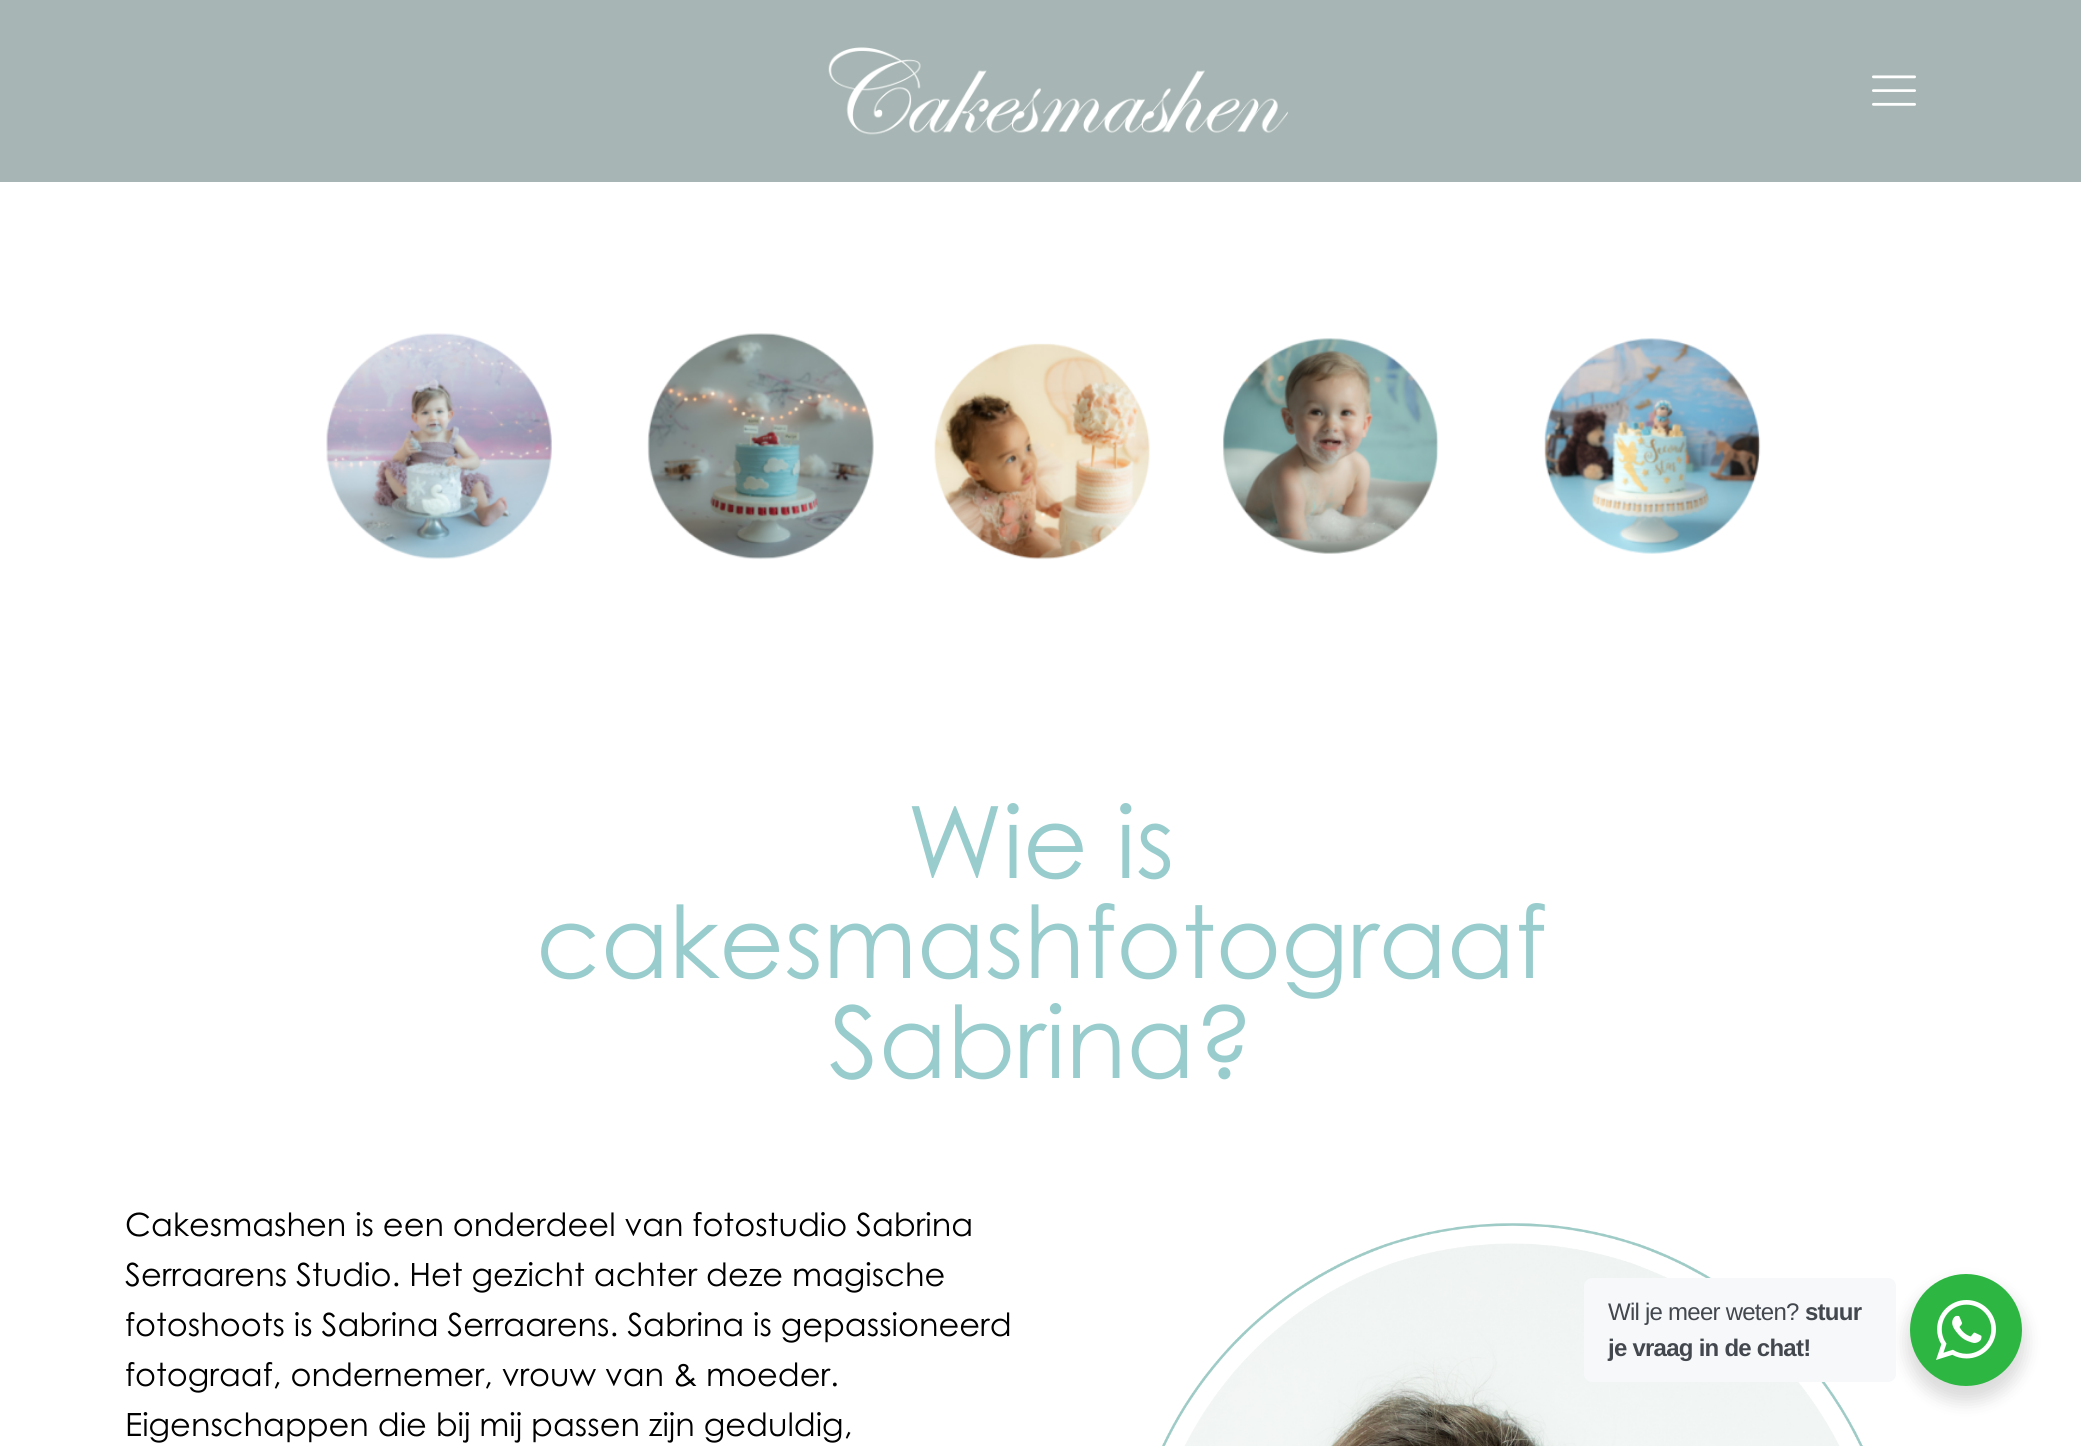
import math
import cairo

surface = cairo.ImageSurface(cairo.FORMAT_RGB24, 2081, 1446)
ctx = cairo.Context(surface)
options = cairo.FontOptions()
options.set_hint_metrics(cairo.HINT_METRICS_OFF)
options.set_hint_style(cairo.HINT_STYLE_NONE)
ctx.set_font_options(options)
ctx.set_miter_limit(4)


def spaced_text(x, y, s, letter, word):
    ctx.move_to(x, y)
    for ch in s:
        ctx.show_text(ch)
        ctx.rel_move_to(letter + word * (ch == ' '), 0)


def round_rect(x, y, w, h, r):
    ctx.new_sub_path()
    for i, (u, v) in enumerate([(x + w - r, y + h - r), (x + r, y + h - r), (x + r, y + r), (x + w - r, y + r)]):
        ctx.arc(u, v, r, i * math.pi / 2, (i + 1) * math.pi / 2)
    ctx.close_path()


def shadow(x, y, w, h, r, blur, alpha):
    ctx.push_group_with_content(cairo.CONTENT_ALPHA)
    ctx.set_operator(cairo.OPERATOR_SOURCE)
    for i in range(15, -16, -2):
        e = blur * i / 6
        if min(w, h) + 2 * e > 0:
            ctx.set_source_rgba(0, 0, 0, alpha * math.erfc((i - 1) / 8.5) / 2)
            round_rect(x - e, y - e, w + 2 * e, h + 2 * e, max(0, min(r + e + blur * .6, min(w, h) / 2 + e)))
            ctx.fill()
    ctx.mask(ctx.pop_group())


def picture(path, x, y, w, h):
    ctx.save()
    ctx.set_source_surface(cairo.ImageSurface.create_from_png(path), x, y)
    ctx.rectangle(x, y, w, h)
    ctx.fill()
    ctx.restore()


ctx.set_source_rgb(0.655, 0.714, 0.706)
ctx.paint()
picture("img1.png", 828, 47, 460, 88)
picture("img2.png", 1872, 75, 44, 31)
ctx.set_source_rgb(1, 1, 1)
ctx.rectangle(0, 182, 2081, 1264)
ctx.fill()
picture("img3.png", 326, 333, 1435, 227)
ctx.select_font_face("Century Gothic")
ctx.set_font_size(100)
ctx.set_source_rgb(0.6, 0.8, 0.8)
ctx.move_to(907, 878)
ctx.show_text("Wie is")
ctx.move_to(536, 978)
ctx.show_text("cakesmashfotograaf")
ctx.move_to(829, 1078)
ctx.show_text("Sabrina?")
ctx.set_font_size(32)
ctx.set_source_rgb(0, 0, 0)
ctx.move_to(125, 1236)
ctx.show_text("Cakesmashen is een onderdeel van fotostudio Sabrina")
ctx.move_to(125, 1286)
ctx.show_text("Serraarens Studio. Het gezicht achter deze magische")
ctx.move_to(125, 1336)
ctx.show_text("fotoshoots is Sabrina Serraarens. Sabrina is gepassioneerd")
ctx.move_to(125, 1386)
ctx.show_text("fotograaf, ondernemer, vrouw van & moeder.")
ctx.move_to(125, 1436)
ctx.show_text("Eigenschappen die bij mij passen zijn geduldig,")
picture("img4.png", 1162, 1223, 701, 223)
ctx.set_source_rgb(0, 0, 0)
shadow(1906, 1282, 120, 120, 60, 8, 0.14)
ctx.set_source_rgb(0.961, 0.969, 0.976)
round_rect(1584, 1278, 312, 104, 8)
ctx.fill()
ctx.select_font_face("Liberation Sans")
ctx.set_font_size(24)
ctx.set_source_rgb(0.263, 0.278, 0.306)
spaced_text(1608, 1320, "Wil je meer weten?", -0.75, 0)
ctx.select_font_face("Liberation Sans", cairo.FONT_SLANT_NORMAL, cairo.FONT_WEIGHT_BOLD)
spaced_text(1805, 1320, "stuur", -0.75, 0)
spaced_text(1608, 1356, "je vraag in de chat!", -0.75, 0)
ctx.set_source_rgb(0.176, 0.718, 0.259)
ctx.new_path()
ctx.arc(1966, 1330, 56, 0, 2 * math.pi)
ctx.fill()
picture("img5.png", 1936, 1300, 60, 60)
surface.write_to_png("page.png")
